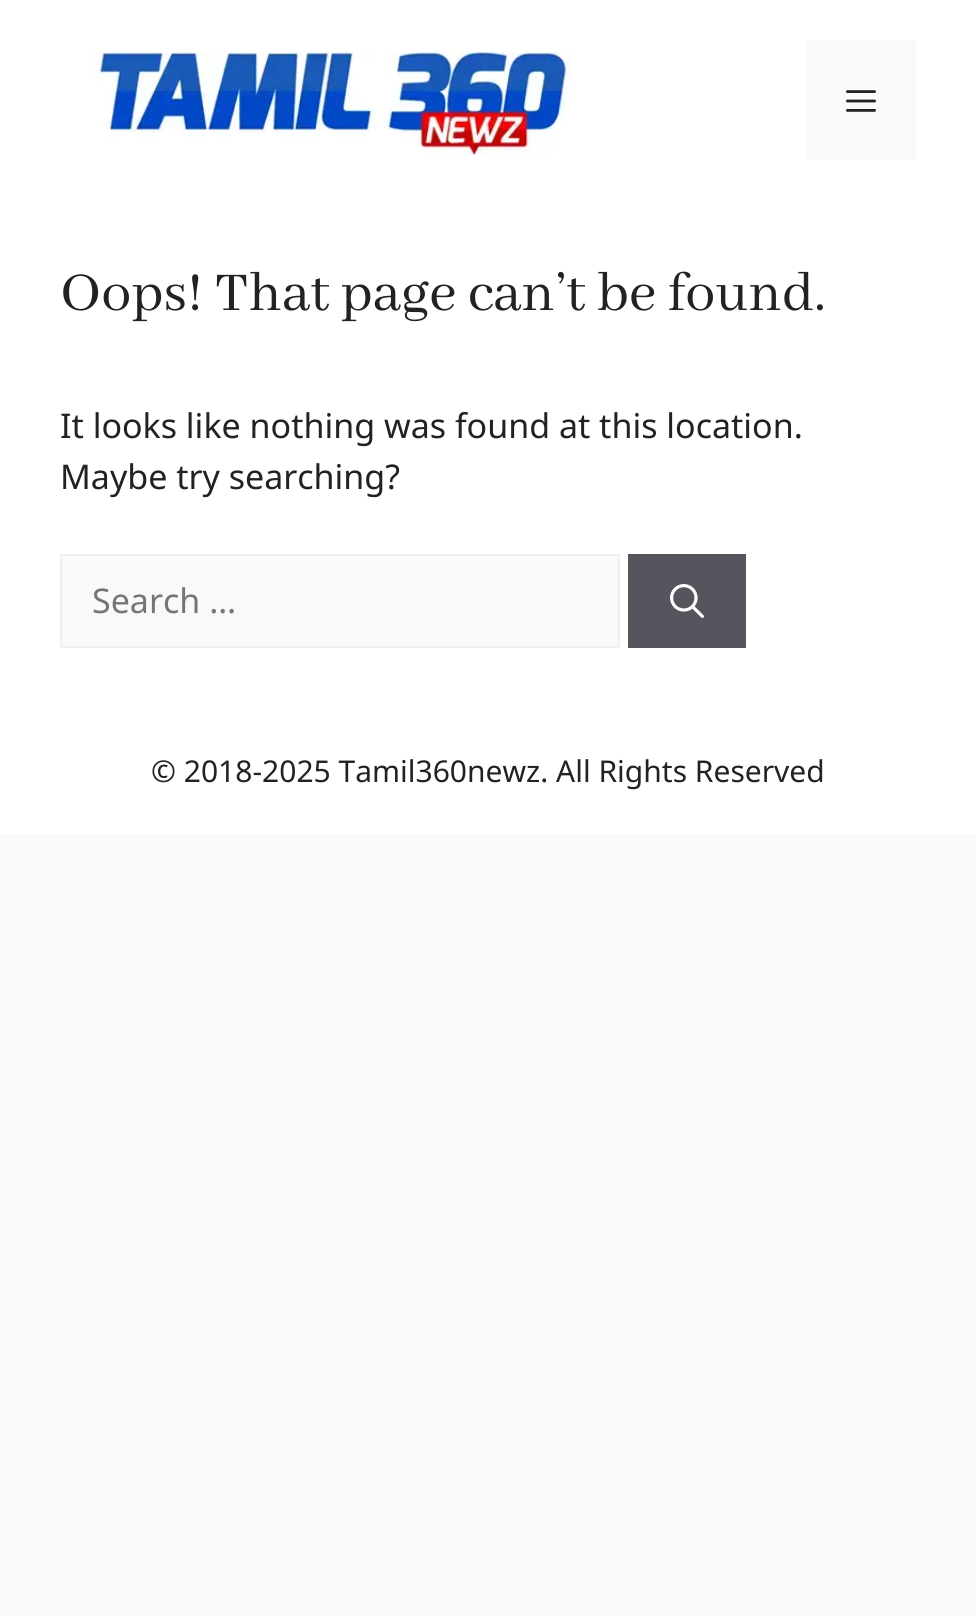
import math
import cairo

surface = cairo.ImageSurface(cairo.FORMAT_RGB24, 976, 1616)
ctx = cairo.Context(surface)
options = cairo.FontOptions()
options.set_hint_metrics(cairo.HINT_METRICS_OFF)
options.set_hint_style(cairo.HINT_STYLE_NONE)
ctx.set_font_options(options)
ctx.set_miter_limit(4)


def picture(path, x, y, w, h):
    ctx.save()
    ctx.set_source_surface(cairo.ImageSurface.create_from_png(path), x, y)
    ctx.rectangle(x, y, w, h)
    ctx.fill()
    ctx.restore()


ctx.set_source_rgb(0.969, 0.973, 0.976)
ctx.paint()
ctx.set_source_rgb(1, 1, 1)
ctx.rectangle(0, 0, 976, 834)
ctx.fill()
picture("img1.png", 93, 51, 480, 104)
ctx.set_source_rgb(0.98, 0.98, 0.98)
ctx.rectangle(806, 40, 110, 120)
ctx.fill()
picture("img2.png", 846, 90, 30, 22)
ctx.select_font_face("Abhaya Libre")
ctx.set_font_size(60)
ctx.set_source_rgb(0.133, 0.133, 0.133)
ctx.move_to(60, 310)
ctx.show_text("Oops! That page can’t be found.")
ctx.select_font_face("Noto Sans")
ctx.set_font_size(34)
ctx.move_to(60, 438)
ctx.show_text("It looks like nothing was found at this location.")
ctx.move_to(60, 489)
ctx.show_text("Maybe try searching?")
ctx.set_source_rgb(0.969, 0.973, 0.976)
ctx.rectangle(61, 555, 558, 92)
ctx.fill_preserve()
ctx.set_source_rgb(0.941, 0.941, 0.941)
ctx.stroke()
ctx.set_source_rgb(0.459, 0.459, 0.459)
ctx.move_to(92, 613)
ctx.show_text("Search …")
ctx.set_source_rgb(0.333, 0.333, 0.369)
ctx.rectangle(628, 554, 118, 94)
ctx.fill()
picture("img3.png", 670, 584, 34, 34)
ctx.set_font_size(30)
ctx.set_source_rgb(0.133, 0.133, 0.133)
ctx.move_to(151, 782)
ctx.show_text("© 2018-2025 Tamil360newz. All Rights Reserved")
surface.write_to_png("page.png")
